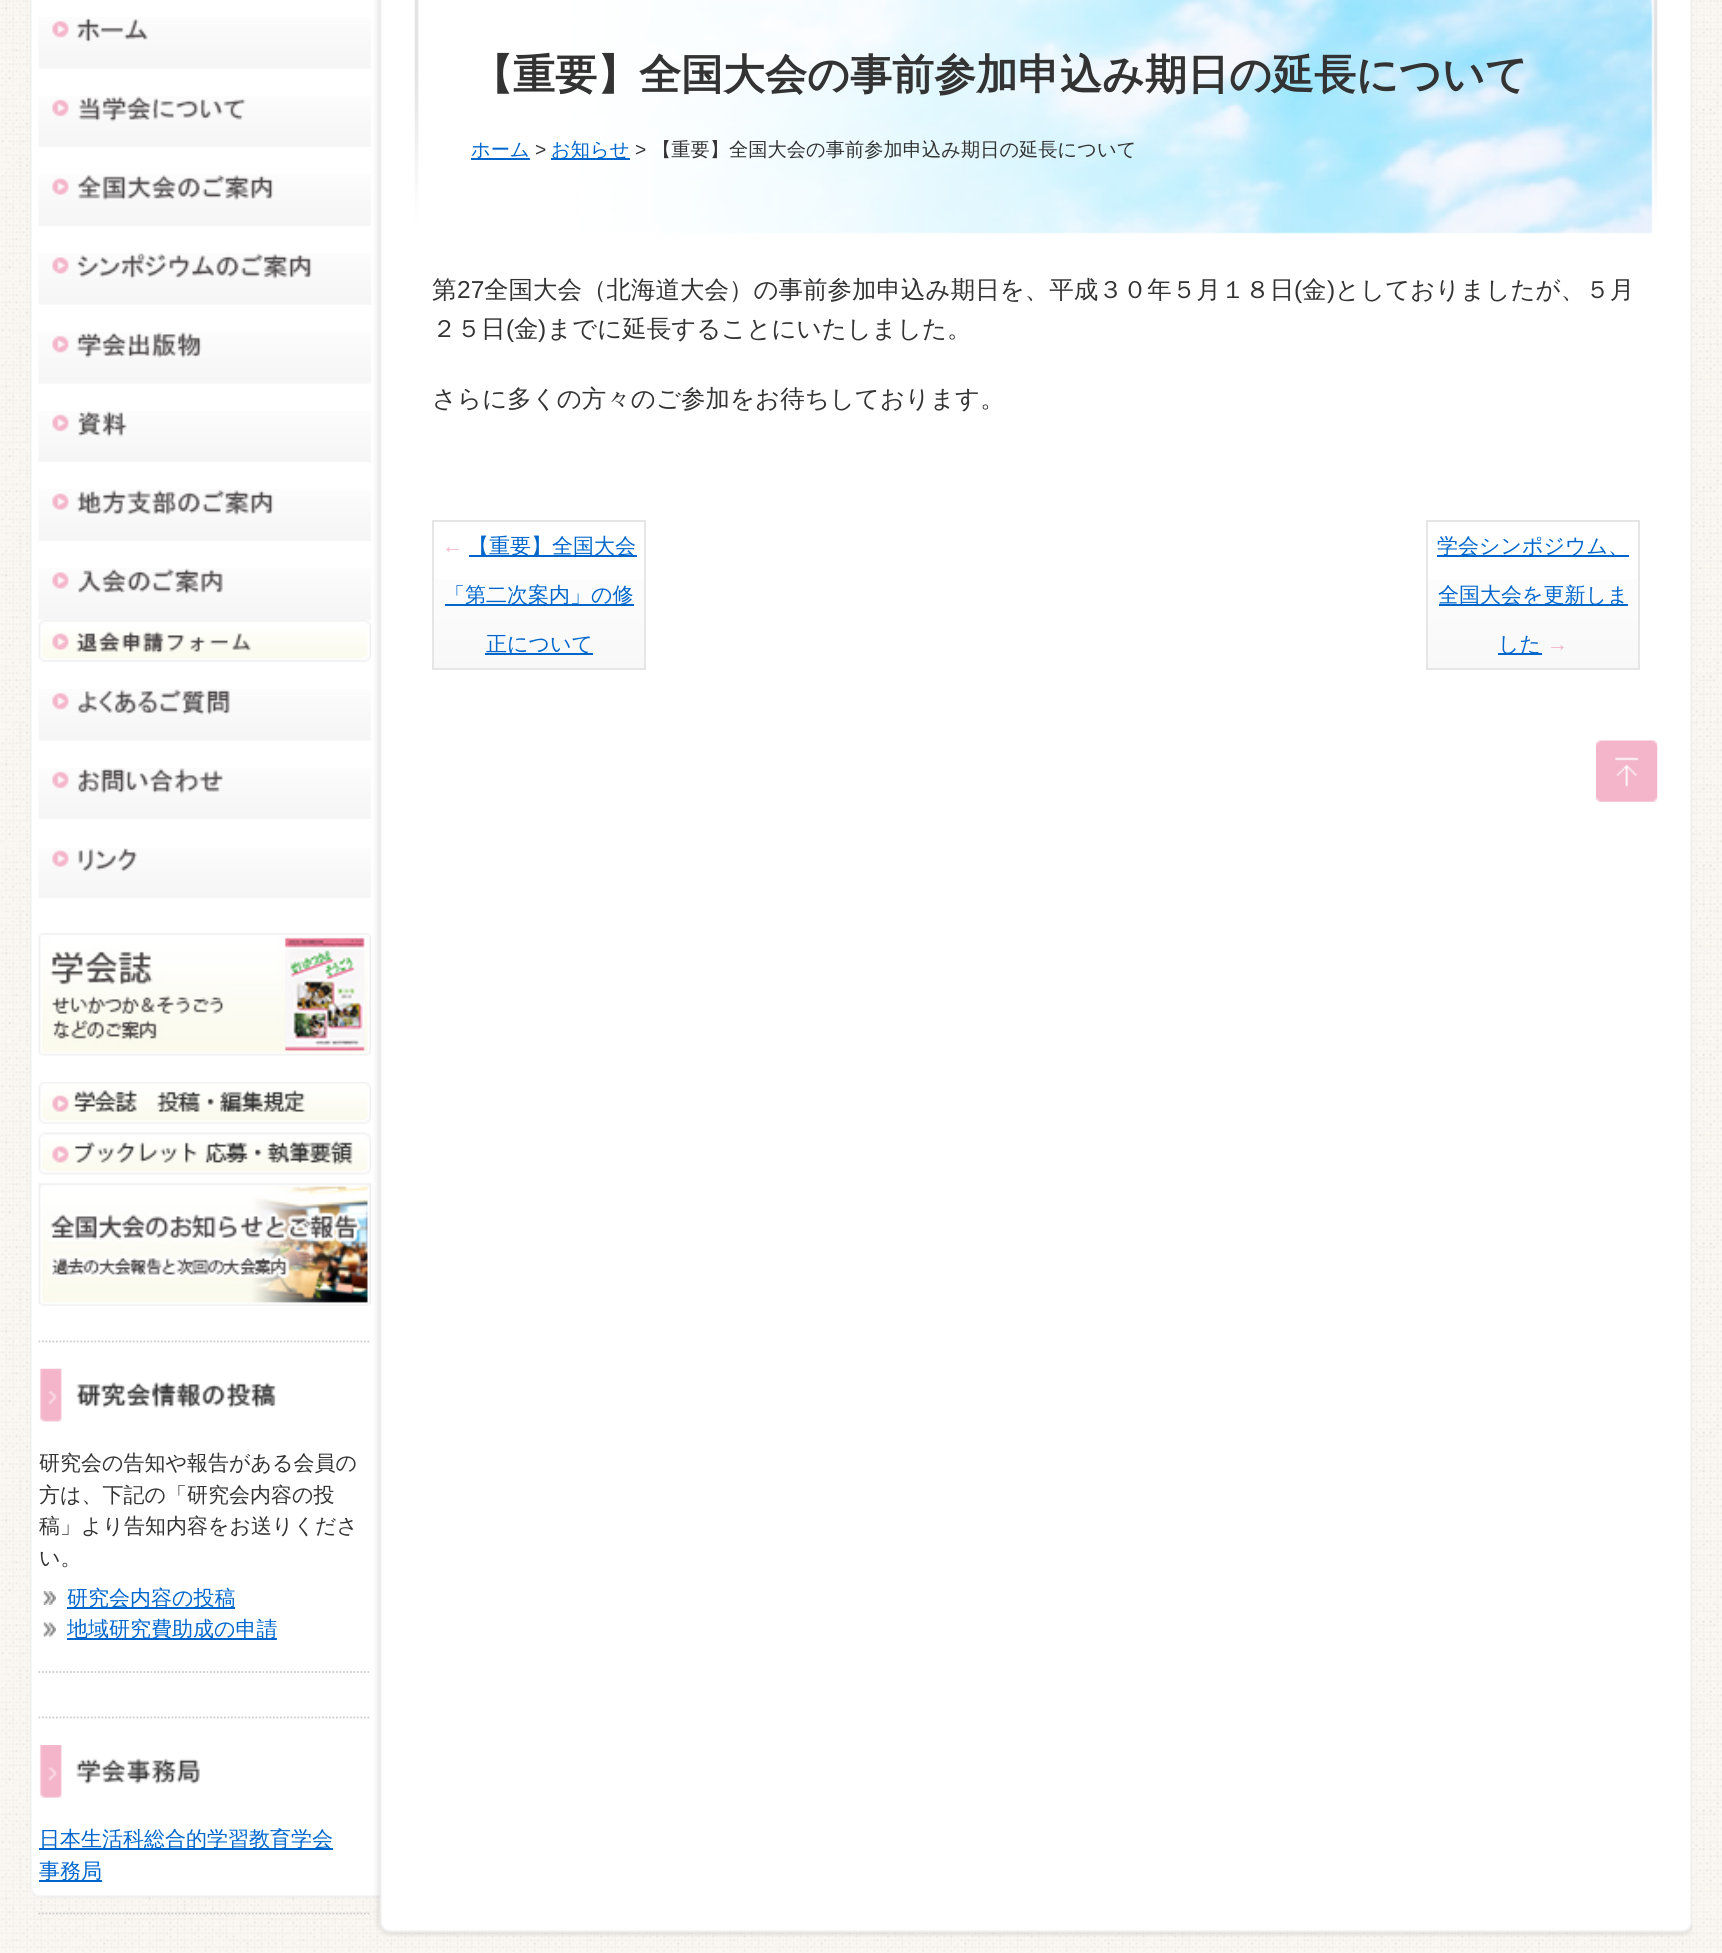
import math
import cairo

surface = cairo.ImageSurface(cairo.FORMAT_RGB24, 1722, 1953)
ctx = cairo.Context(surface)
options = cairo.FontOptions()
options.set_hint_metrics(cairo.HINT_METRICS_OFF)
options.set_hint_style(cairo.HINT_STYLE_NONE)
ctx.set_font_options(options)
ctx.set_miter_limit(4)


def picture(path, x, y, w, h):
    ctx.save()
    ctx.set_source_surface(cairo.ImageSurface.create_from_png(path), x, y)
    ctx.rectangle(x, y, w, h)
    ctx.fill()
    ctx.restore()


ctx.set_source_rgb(1, 1, 1)
ctx.paint()
picture("img1.png", 0, 0, 1722, 1953)
picture("img2.png", 30, 0, 1663, 1937)
picture("img3.png", 414, 0, 1244, 234)
ctx.select_font_face("WenQuanYi Zen Hei", cairo.FONT_SLANT_NORMAL, cairo.FONT_WEIGHT_BOLD)
ctx.set_font_size(42)
ctx.set_source_rgb(0.2, 0.2, 0.2)
ctx.move_to(471, 89)
ctx.show_text("【重要】全国大会の事前参加申込み期日の延長について")
ctx.select_font_face("WenQuanYi Zen Hei Medium")
ctx.set_font_size(19.25)
ctx.set_source_rgb(0, 0.4, 0.8)
ctx.move_to(471, 156)
ctx.show_text("ホーム")
ctx.rectangle(471, 158, 59, 2)
ctx.fill()
ctx.select_font_face("Liberation Sans")
ctx.set_source_rgb(0.2, 0.2, 0.2)
ctx.move_to(535, 156)
ctx.show_text(">")
ctx.set_source_rgb(0, 0.4, 0.8)
ctx.rectangle(551, 158, 79, 2)
ctx.fill()
ctx.select_font_face("WenQuanYi Zen Hei Medium")
ctx.move_to(551, 156)
ctx.show_text("お知らせ")
ctx.select_font_face("Liberation Sans")
ctx.set_source_rgb(0.2, 0.2, 0.2)
ctx.move_to(635, 156)
ctx.show_text(">")
ctx.select_font_face("WenQuanYi Zen Hei Medium")
ctx.move_to(652, 156)
ctx.show_text("【重要】全国大会の事前参加申込み期日の延長について")
ctx.set_font_size(24.5)
ctx.move_to(432, 298)
ctx.show_text("第")
ctx.select_font_face("Liberation Sans")
ctx.move_to(457, 298)
ctx.show_text("27")
ctx.select_font_face("WenQuanYi Zen Hei Medium")
ctx.move_to(484, 298)
ctx.show_text("全国大会（北海道大会）の事前参加申込み期日を、平成３０年５月１８日")
ctx.select_font_face("Liberation Sans")
ctx.move_to(1294, 298)
ctx.show_text("(")
ctx.select_font_face("WenQuanYi Zen Hei Medium")
ctx.move_to(1302, 298)
ctx.show_text("金")
ctx.select_font_face("Liberation Sans")
ctx.move_to(1327, 298)
ctx.show_text(")")
ctx.select_font_face("WenQuanYi Zen Hei Medium")
ctx.move_to(1335, 298)
ctx.show_text("としておりましたが、５月")
ctx.move_to(432, 337)
ctx.show_text("２５日")
ctx.select_font_face("Liberation Sans")
ctx.move_to(506, 337)
ctx.show_text("(")
ctx.select_font_face("WenQuanYi Zen Hei Medium")
ctx.move_to(514, 337)
ctx.show_text("金")
ctx.select_font_face("Liberation Sans")
ctx.move_to(538, 337)
ctx.show_text(")")
ctx.select_font_face("WenQuanYi Zen Hei Medium")
ctx.move_to(547, 337)
ctx.show_text("までに延長することにいたしました。")
ctx.move_to(432, 407)
ctx.show_text("さらに多くの方々のご参加をお待ちしております。")
gradient = cairo.LinearGradient(539, 522, 539, 669)
gradient.add_color_stop_rgba(0.05, 1, 1, 1, 1)
gradient.add_color_stop_rgba(1, 0.973, 0.973, 0.973, 1)
ctx.set_source(gradient)
ctx.rectangle(434, 579, 210, 89)
ctx.fill()
ctx.rectangle(433, 521, 212, 148)
ctx.set_source_rgb(0.902, 0.902, 0.902)
ctx.stroke()
ctx.select_font_face("Liberation Sans")
ctx.set_font_size(21)
ctx.set_source_rgb(0.957, 0.71, 0.792)
ctx.move_to(442, 553)
ctx.show_text("←")
ctx.set_source_rgb(0, 0.4, 0.8)
ctx.rectangle(469, 555, 168, 2)
ctx.fill()
ctx.select_font_face("WenQuanYi Zen Hei Medium")
ctx.move_to(468, 553)
ctx.show_text("【重要】全国大会")
ctx.rectangle(445, 604, 189, 2)
ctx.fill()
ctx.move_to(444, 602)
ctx.show_text("「第二次案内」の修")
ctx.rectangle(485, 653, 108, 2)
ctx.fill()
ctx.move_to(486, 651)
ctx.show_text("正について")
gradient = cairo.LinearGradient(1533, 522, 1533, 669)
gradient.add_color_stop_rgba(0.05, 1, 1, 1, 1)
gradient.add_color_stop_rgba(1, 0.973, 0.973, 0.973, 1)
ctx.set_source(gradient)
ctx.rectangle(1428, 579, 210, 89)
ctx.fill()
ctx.rectangle(1427, 521, 212, 148)
ctx.set_source_rgb(0.902, 0.902, 0.902)
ctx.stroke()
ctx.set_source_rgb(0, 0.4, 0.8)
ctx.rectangle(1437, 555, 192, 2)
ctx.fill()
ctx.move_to(1437, 553)
ctx.show_text("学会シンポジウム、")
ctx.rectangle(1439, 604, 189, 2)
ctx.fill()
ctx.move_to(1438, 602)
ctx.show_text("全国大会を更新しま")
ctx.rectangle(1498, 653, 44, 2)
ctx.fill()
ctx.move_to(1498, 651)
ctx.show_text("した")
ctx.select_font_face("Liberation Sans")
ctx.set_source_rgb(0.957, 0.71, 0.792)
ctx.move_to(1547, 651)
ctx.show_text("→")
picture("img4.png", 1596, 740, 62, 62)
picture("img5.png", 38, 17, 333, 52)
picture("img6.png", 38, 96, 333, 51)
picture("img7.png", 38, 174, 333, 52)
picture("img8.png", 38, 253, 333, 52)
picture("img9.png", 38, 332, 333, 52)
picture("img10.png", 38, 411, 333, 51)
picture("img11.png", 38, 489, 333, 52)
picture("img12.png", 38, 568, 333, 52)
picture("img13.png", 38, 620, 333, 42)
picture("img14.png", 38, 689, 333, 52)
picture("img15.png", 38, 768, 333, 51)
picture("img16.png", 38, 848, 333, 50)
picture("img17.png", 38, 933, 333, 123)
picture("img18.png", 38, 1082, 333, 42)
picture("img19.png", 38, 1132, 333, 43)
picture("img20.png", 38, 1183, 333, 123)
ctx.new_path()
ctx.move_to(38.5, 1341.5)
ctx.line_to(371, 1341.5)
ctx.set_source_rgb(0.8, 0.8, 0.8)
ctx.set_line_width(1.8)
ctx.set_dash([1.75, 1.75])
ctx.stroke()
ctx.new_path()
ctx.move_to(38.5, 1672)
ctx.line_to(371, 1672)
ctx.stroke()
picture("img21.png", 39, 1368, 237, 54)
ctx.select_font_face("WenQuanYi Zen Hei Medium")
ctx.set_source_rgb(0.2, 0.2, 0.2)
ctx.move_to(39, 1470)
ctx.show_text("研究会の告知や報告がある会員の")
ctx.move_to(39, 1502)
ctx.show_text("方は、下記の「研究会内容の投")
ctx.move_to(39, 1533)
ctx.show_text("稿」より告知内容をお送りくださ")
ctx.move_to(39, 1565)
ctx.show_text("い。")
picture("img22.png", 43, 1591, 13, 14)
ctx.set_source_rgb(0, 0.4, 0.8)
ctx.rectangle(67, 1607, 168, 2)
ctx.fill()
ctx.move_to(67, 1605)
ctx.show_text("研究会内容の投稿")
picture("img23.png", 43, 1622, 13, 15)
ctx.rectangle(67, 1638, 210, 2)
ctx.fill()
ctx.move_to(67, 1636)
ctx.show_text("地域研究費助成の申請")
ctx.new_path()
ctx.move_to(38.5, 1717.5)
ctx.line_to(371, 1717.5)
ctx.set_source_rgb(0.8, 0.8, 0.8)
ctx.stroke()
ctx.new_path()
ctx.move_to(38.5, 1913.5)
ctx.line_to(371, 1913.5)
ctx.stroke()
picture("img24.png", 39, 1745, 161, 53)
ctx.set_source_rgb(0, 0.4, 0.8)
ctx.rectangle(39, 1848, 294, 2)
ctx.fill()
ctx.move_to(39, 1846)
ctx.show_text("日本生活科総合的学習教育学会")
ctx.rectangle(39, 1880, 63, 2)
ctx.fill()
ctx.move_to(39, 1878)
ctx.show_text("事務局")
surface.write_to_png("page.png")
